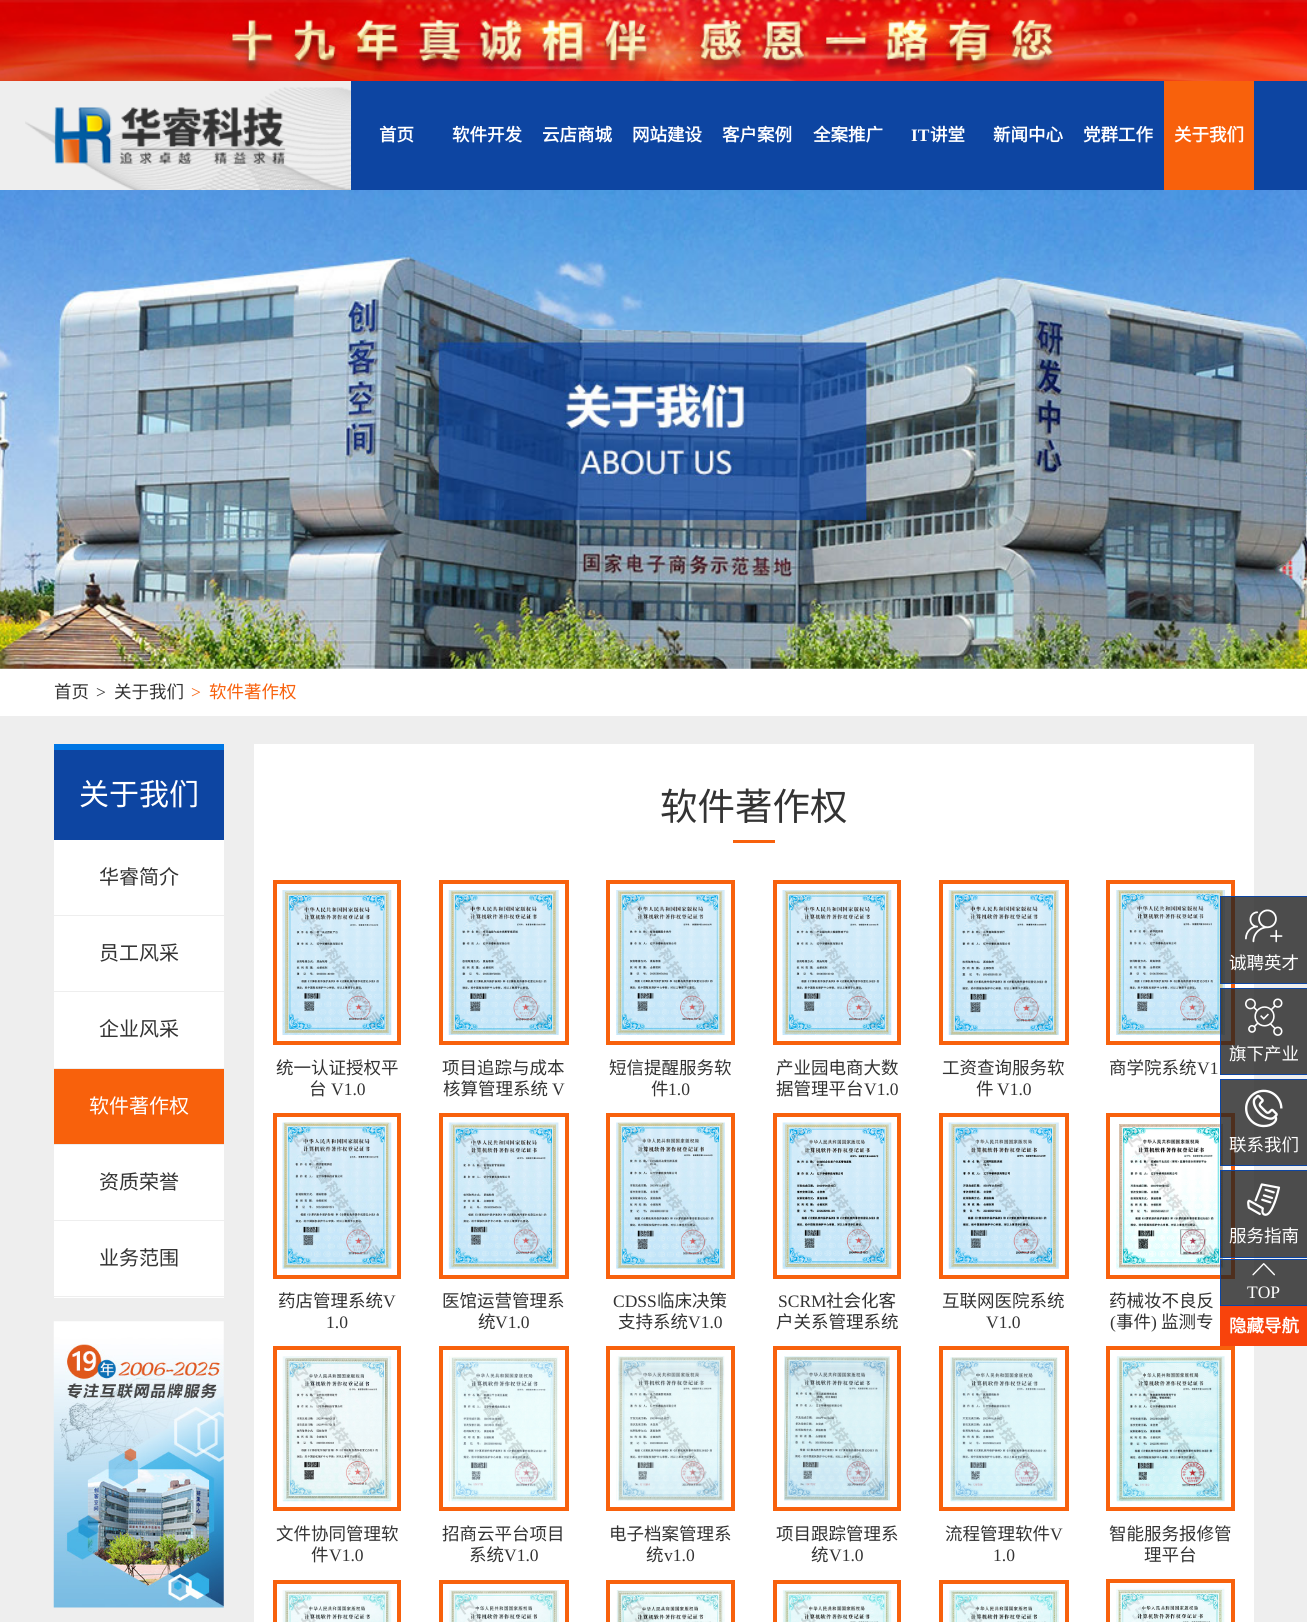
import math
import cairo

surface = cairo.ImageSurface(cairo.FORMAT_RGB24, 1307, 1622)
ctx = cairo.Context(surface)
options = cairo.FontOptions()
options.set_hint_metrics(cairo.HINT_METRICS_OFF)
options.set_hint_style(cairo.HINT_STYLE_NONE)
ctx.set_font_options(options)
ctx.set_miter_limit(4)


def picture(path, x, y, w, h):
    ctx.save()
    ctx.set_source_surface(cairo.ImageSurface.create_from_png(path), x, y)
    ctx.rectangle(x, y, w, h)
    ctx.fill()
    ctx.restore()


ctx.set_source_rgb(0.933, 0.933, 0.933)
ctx.paint()
picture("img1.png", 0, 0, 1307, 81)
picture("img2.png", 25, 87, 326, 103)
picture("img3.png", 54, 107, 232, 57)
ctx.set_source_rgb(0.051, 0.271, 0.635)
ctx.rectangle(351, 81, 813, 109)
ctx.fill()
ctx.select_font_face("Noto Sans CJK SC", cairo.FONT_SLANT_NORMAL, cairo.FONT_WEIGHT_BOLD)
ctx.set_font_size(17.5)
ctx.set_source_rgb(1, 1, 1)
ctx.move_to(379, 141)
ctx.show_text("首页")
ctx.move_to(452, 141)
ctx.show_text("软件开发")
ctx.move_to(542, 141)
ctx.show_text("云店商城")
ctx.move_to(632, 141)
ctx.show_text("网站建设")
ctx.move_to(722, 141)
ctx.show_text("客户案例")
ctx.move_to(813, 141)
ctx.show_text("全案推广")
ctx.select_font_face("Liberation Serif", cairo.FONT_SLANT_NORMAL, cairo.FONT_WEIGHT_BOLD)
ctx.move_to(911, 141)
ctx.show_text("IT")
ctx.select_font_face("Noto Sans CJK SC", cairo.FONT_SLANT_NORMAL, cairo.FONT_WEIGHT_BOLD)
ctx.move_to(930, 141)
ctx.show_text("讲堂")
ctx.move_to(993, 141)
ctx.show_text("新闻中心")
ctx.move_to(1083, 141)
ctx.show_text("党群工作")
ctx.set_source_rgb(0.969, 0.38, 0.047)
ctx.rectangle(1164, 81, 90, 109)
ctx.fill()
ctx.set_source_rgb(1, 1, 1)
ctx.move_to(1174, 141)
ctx.show_text("关于我们")
ctx.set_source_rgb(0.051, 0.271, 0.635)
ctx.rectangle(1254, 81, 53, 109)
ctx.fill()
picture("img4.png", 0, 190, 1307, 479)
ctx.set_source_rgb(1, 1, 1)
ctx.rectangle(0, 669, 1307, 47)
ctx.fill()
ctx.select_font_face("Noto Sans CJK SC")
ctx.set_source_rgb(0.2, 0.2, 0.2)
ctx.move_to(54, 698)
ctx.show_text("首页")
ctx.select_font_face("Liberation Serif")
ctx.move_to(96, 698)
ctx.show_text(">")
ctx.select_font_face("Noto Sans CJK SC")
ctx.move_to(114, 698)
ctx.show_text("关于我们")
ctx.select_font_face("Liberation Serif")
ctx.set_source_rgb(0.969, 0.38, 0.047)
ctx.move_to(191, 698)
ctx.show_text(">")
ctx.select_font_face("Noto Sans CJK SC")
ctx.move_to(209, 698)
ctx.show_text("软件著作权")
ctx.set_source_rgb(0.051, 0.271, 0.635)
ctx.rectangle(54, 750, 170, 90)
ctx.fill()
ctx.set_source_rgb(0, 0.463, 0.894)
ctx.rectangle(54, 744, 170, 6)
ctx.fill()
ctx.set_font_size(30)
ctx.set_source_rgb(1, 1, 1)
ctx.move_to(79, 805)
ctx.show_text("关于我们")
ctx.rectangle(54, 840, 170, 75)
ctx.fill()
ctx.set_font_size(20)
ctx.set_source_rgb(0.2, 0.2, 0.2)
ctx.move_to(99, 884)
ctx.show_text("华睿简介")
ctx.set_source_rgb(1, 1, 1)
ctx.rectangle(54, 916, 170, 152)
ctx.fill()
ctx.set_source_rgb(0.933, 0.933, 0.933)
ctx.rectangle(54, 991, 170, 1)
ctx.fill()
ctx.set_source_rgb(0.2, 0.2, 0.2)
ctx.move_to(99, 960)
ctx.show_text("员工风采")
ctx.move_to(99, 1036)
ctx.show_text("企业风采")
ctx.set_source_rgb(0.969, 0.38, 0.047)
ctx.rectangle(54, 1069, 170, 75)
ctx.fill()
ctx.set_source_rgb(1, 1, 1)
ctx.move_to(89, 1113)
ctx.show_text("软件著作权")
ctx.rectangle(54, 1145, 170, 75)
ctx.fill()
ctx.set_source_rgb(0.2, 0.2, 0.2)
ctx.move_to(99, 1189)
ctx.show_text("资质荣誉")
ctx.set_source_rgb(1, 1, 1)
ctx.rectangle(54, 1221, 170, 77)
ctx.fill()
ctx.set_source_rgb(0.933, 0.933, 0.933)
ctx.rectangle(54, 1296, 170, 1)
ctx.fill()
ctx.set_source_rgb(0.2, 0.2, 0.2)
ctx.move_to(99, 1265)
ctx.show_text("业务范围")
picture("img5.png", 53, 1321, 171, 287)
ctx.set_source_rgb(1, 1, 1)
ctx.rectangle(254, 744, 1000, 878)
ctx.fill()
ctx.set_font_size(37.5)
ctx.set_source_rgb(0.2, 0.2, 0.2)
ctx.move_to(660, 820)
ctx.show_text("软件著作权")
ctx.set_source_rgb(0.969, 0.38, 0.047)
ctx.rectangle(733, 840, 42, 3)
ctx.fill()
ctx.rectangle(275, 882, 124, 161)
ctx.set_line_width(4)
ctx.stroke()
picture("img6.png", 282, 890, 110, 145)
ctx.set_font_size(17.5)
ctx.set_source_rgb(0.2, 0.2, 0.2)
ctx.move_to(276, 1074)
ctx.show_text("统一认证授权平")
ctx.move_to(309, 1095)
ctx.show_text("台")
ctx.select_font_face("Liberation Serif")
ctx.move_to(331, 1095)
ctx.show_text("V1.0")
ctx.rectangle(441, 882, 126, 161)
ctx.set_source_rgb(0.969, 0.38, 0.047)
ctx.stroke()
picture("img7.png", 448, 890, 111, 145)
ctx.select_font_face("Noto Sans CJK SC")
ctx.set_source_rgb(0.2, 0.2, 0.2)
ctx.move_to(442, 1074)
ctx.show_text("项目追踪与成本")
ctx.move_to(443, 1095)
ctx.show_text("核算管理系统")
ctx.select_font_face("Liberation Serif")
ctx.move_to(552, 1095)
ctx.show_text("V")
ctx.rectangle(608, 882, 125, 161)
ctx.set_source_rgb(0.969, 0.38, 0.047)
ctx.stroke()
picture("img8.png", 616, 890, 109, 145)
ctx.select_font_face("Noto Sans CJK SC")
ctx.set_source_rgb(0.2, 0.2, 0.2)
ctx.move_to(609, 1074)
ctx.show_text("短信提醒服务软")
ctx.move_to(651, 1095)
ctx.show_text("件")
ctx.select_font_face("Liberation Serif")
ctx.move_to(668, 1095)
ctx.show_text("1.0")
ctx.rectangle(775, 882, 124, 161)
ctx.set_source_rgb(0.969, 0.38, 0.047)
ctx.stroke()
picture("img9.png", 782, 890, 110, 145)
ctx.select_font_face("Noto Sans CJK SC")
ctx.set_source_rgb(0.2, 0.2, 0.2)
ctx.move_to(776, 1074)
ctx.show_text("产业园电商大数")
ctx.move_to(776, 1095)
ctx.show_text("据管理平台")
ctx.select_font_face("Liberation Serif")
ctx.move_to(864, 1095)
ctx.show_text("V1.0")
ctx.rectangle(941, 882, 126, 161)
ctx.set_source_rgb(0.969, 0.38, 0.047)
ctx.stroke()
picture("img10.png", 948, 890, 111, 145)
ctx.select_font_face("Noto Sans CJK SC")
ctx.set_source_rgb(0.2, 0.2, 0.2)
ctx.move_to(942, 1074)
ctx.show_text("工资查询服务软")
ctx.move_to(976, 1095)
ctx.show_text("件")
ctx.select_font_face("Liberation Serif")
ctx.move_to(997, 1095)
ctx.show_text("V1.0")
ctx.rectangle(1108, 882, 125, 161)
ctx.set_source_rgb(0.969, 0.38, 0.047)
ctx.stroke()
picture("img11.png", 1116, 890, 109, 145)
ctx.select_font_face("Noto Sans CJK SC")
ctx.set_source_rgb(0.2, 0.2, 0.2)
ctx.move_to(1109, 1074)
ctx.show_text("商学院系统")
ctx.select_font_face("Liberation Serif")
ctx.move_to(1197, 1074)
ctx.show_text("V1")
ctx.rectangle(275, 1115, 124, 162)
ctx.set_source_rgb(0.969, 0.38, 0.047)
ctx.stroke()
picture("img12.png", 282, 1122, 110, 147)
ctx.select_font_face("Noto Sans CJK SC")
ctx.set_source_rgb(0.2, 0.2, 0.2)
ctx.move_to(278, 1307)
ctx.show_text("药店管理系统")
ctx.select_font_face("Liberation Serif")
ctx.move_to(383, 1307)
ctx.show_text("V")
ctx.move_to(326, 1328)
ctx.show_text("1.0")
ctx.rectangle(441, 1115, 126, 162)
ctx.set_source_rgb(0.969, 0.38, 0.047)
ctx.stroke()
picture("img13.png", 448, 1122, 111, 147)
ctx.select_font_face("Noto Sans CJK SC")
ctx.set_source_rgb(0.2, 0.2, 0.2)
ctx.move_to(442, 1307)
ctx.show_text("医馆运营管理系")
ctx.move_to(478, 1328)
ctx.show_text("统")
ctx.select_font_face("Liberation Serif")
ctx.move_to(495, 1328)
ctx.show_text("V1.0")
ctx.rectangle(608, 1115, 125, 162)
ctx.set_source_rgb(0.969, 0.38, 0.047)
ctx.stroke()
picture("img14.png", 616, 1122, 109, 147)
ctx.set_source_rgb(0.2, 0.2, 0.2)
ctx.move_to(613, 1307)
ctx.show_text("CDSS")
ctx.select_font_face("Noto Sans CJK SC")
ctx.move_to(657, 1307)
ctx.show_text("临床决策")
ctx.move_to(618, 1328)
ctx.show_text("支持系统")
ctx.select_font_face("Liberation Serif")
ctx.move_to(688, 1328)
ctx.show_text("V1.0")
ctx.rectangle(775, 1115, 124, 162)
ctx.set_source_rgb(0.969, 0.38, 0.047)
ctx.stroke()
picture("img15.png", 782, 1122, 110, 147)
ctx.set_source_rgb(0.2, 0.2, 0.2)
ctx.move_to(778, 1307)
ctx.show_text("SCRM")
ctx.select_font_face("Noto Sans CJK SC")
ctx.move_to(826, 1307)
ctx.show_text("社会化客")
ctx.move_to(776, 1328)
ctx.show_text("户关系管理系统")
ctx.rectangle(941, 1115, 126, 162)
ctx.set_source_rgb(0.969, 0.38, 0.047)
ctx.stroke()
picture("img16.png", 948, 1122, 111, 147)
ctx.set_source_rgb(0.2, 0.2, 0.2)
ctx.move_to(942, 1307)
ctx.show_text("互联网医院系统")
ctx.select_font_face("Liberation Serif")
ctx.move_to(986, 1328)
ctx.show_text("V1.0")
ctx.rectangle(1108, 1115, 125, 162)
ctx.set_source_rgb(0.969, 0.38, 0.047)
ctx.stroke()
picture("img17.png", 1116, 1124, 109, 145)
ctx.select_font_face("Noto Sans CJK SC")
ctx.set_source_rgb(0.2, 0.2, 0.2)
ctx.move_to(1109, 1307)
ctx.show_text("药械妆不良反")
ctx.select_font_face("Liberation Serif")
ctx.move_to(1110, 1328)
ctx.show_text("(")
ctx.select_font_face("Noto Sans CJK SC")
ctx.move_to(1116, 1328)
ctx.show_text("事件")
ctx.select_font_face("Liberation Serif")
ctx.move_to(1151, 1328)
ctx.show_text(")")
ctx.select_font_face("Noto Sans CJK SC")
ctx.move_to(1161, 1328)
ctx.show_text("监测专")
ctx.rectangle(275, 1348, 124, 161)
ctx.set_source_rgb(0.969, 0.38, 0.047)
ctx.stroke()
picture("img18.png", 282, 1356, 110, 146)
ctx.set_source_rgb(0.2, 0.2, 0.2)
ctx.move_to(276, 1540)
ctx.show_text("文件协同管理软")
ctx.move_to(311, 1561)
ctx.show_text("件")
ctx.select_font_face("Liberation Serif")
ctx.move_to(329, 1561)
ctx.show_text("V1.0")
ctx.rectangle(441, 1348, 126, 161)
ctx.set_source_rgb(0.969, 0.38, 0.047)
ctx.stroke()
picture("img19.png", 448, 1356, 110, 146)
ctx.select_font_face("Noto Sans CJK SC")
ctx.set_source_rgb(0.2, 0.2, 0.2)
ctx.move_to(442, 1540)
ctx.show_text("招商云平台项目")
ctx.move_to(469, 1561)
ctx.show_text("系统")
ctx.select_font_face("Liberation Serif")
ctx.move_to(504, 1561)
ctx.show_text("V1.0")
ctx.rectangle(608, 1348, 125, 161)
ctx.set_source_rgb(0.969, 0.38, 0.047)
ctx.stroke()
picture("img20.png", 616, 1356, 109, 145)
ctx.select_font_face("Noto Sans CJK SC")
ctx.set_source_rgb(0.2, 0.2, 0.2)
ctx.move_to(609, 1540)
ctx.show_text("电子档案管理系")
ctx.move_to(646, 1561)
ctx.show_text("统")
ctx.select_font_face("Liberation Serif")
ctx.move_to(664, 1561)
ctx.show_text("v1.0")
ctx.rectangle(775, 1348, 124, 161)
ctx.set_source_rgb(0.969, 0.38, 0.047)
ctx.stroke()
picture("img21.png", 784, 1356, 106, 145)
ctx.select_font_face("Noto Sans CJK SC")
ctx.set_source_rgb(0.2, 0.2, 0.2)
ctx.move_to(776, 1540)
ctx.show_text("项目跟踪管理系")
ctx.move_to(811, 1561)
ctx.show_text("统")
ctx.select_font_face("Liberation Serif")
ctx.move_to(829, 1561)
ctx.show_text("V1.0")
ctx.rectangle(941, 1348, 126, 161)
ctx.set_source_rgb(0.969, 0.38, 0.047)
ctx.stroke()
picture("img22.png", 950, 1357, 108, 145)
ctx.select_font_face("Noto Sans CJK SC")
ctx.set_source_rgb(0.2, 0.2, 0.2)
ctx.move_to(945, 1540)
ctx.show_text("流程管理软件")
ctx.select_font_face("Liberation Serif")
ctx.move_to(1050, 1540)
ctx.show_text("V")
ctx.move_to(993, 1561)
ctx.show_text("1.0")
ctx.rectangle(1108, 1348, 125, 161)
ctx.set_source_rgb(0.969, 0.38, 0.047)
ctx.stroke()
picture("img23.png", 1116, 1356, 109, 146)
ctx.select_font_face("Noto Sans CJK SC")
ctx.set_source_rgb(0.2, 0.2, 0.2)
ctx.move_to(1109, 1540)
ctx.show_text("智能服务报修管")
ctx.move_to(1144, 1561)
ctx.show_text("理平台")
ctx.rectangle(275, 1582, 124, 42)
ctx.set_source_rgb(0.969, 0.38, 0.047)
ctx.stroke()
picture("img24.png", 282, 1590, 110, 32)
ctx.rectangle(441, 1582, 126, 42)
ctx.stroke()
picture("img25.png", 449, 1590, 110, 32)
ctx.rectangle(608, 1582, 125, 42)
ctx.stroke()
picture("img26.png", 616, 1590, 109, 32)
ctx.rectangle(775, 1582, 124, 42)
ctx.stroke()
picture("img27.png", 782, 1590, 110, 32)
ctx.rectangle(941, 1582, 126, 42)
ctx.stroke()
picture("img28.png", 949, 1590, 110, 32)
ctx.rectangle(1108, 1581, 125, 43)
ctx.stroke()
picture("img29.png", 1116, 1588, 109, 34)
ctx.set_source_rgba(0.137, 0.137, 0.137, 0.8)
ctx.rectangle(1220.5, 896.5, 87, 87)
ctx.fill_preserve()
ctx.set_source_rgb(0.051, 0.271, 0.635)
ctx.set_line_width(1)
ctx.stroke()
picture("img30.png", 1245, 909, 38, 34)
ctx.set_source_rgb(1, 1, 1)
ctx.move_to(1229, 969)
ctx.show_text("诚聘英才")
ctx.set_source_rgba(0.137, 0.137, 0.137, 0.8)
ctx.rectangle(1220.5, 988.5, 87, 86)
ctx.fill_preserve()
ctx.set_source_rgb(0.051, 0.271, 0.635)
ctx.stroke()
picture("img31.png", 1245, 998, 38, 38)
ctx.set_source_rgb(1, 1, 1)
ctx.move_to(1229, 1060)
ctx.show_text("旗下产业")
ctx.set_source_rgba(0.137, 0.137, 0.137, 0.8)
ctx.rectangle(1220.5, 1079.5, 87, 86)
ctx.fill_preserve()
ctx.set_source_rgb(0.051, 0.271, 0.635)
ctx.stroke()
picture("img32.png", 1245, 1089, 38, 39)
ctx.set_source_rgb(1, 1, 1)
ctx.move_to(1229, 1151)
ctx.show_text("联系我们")
ctx.set_source_rgba(0.137, 0.137, 0.137, 0.8)
ctx.rectangle(1220.5, 1170.5, 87, 87)
ctx.fill_preserve()
ctx.set_source_rgb(0.051, 0.271, 0.635)
ctx.stroke()
picture("img33.png", 1247, 1183, 34, 33)
ctx.set_source_rgb(1, 1, 1)
ctx.move_to(1229, 1242)
ctx.show_text("服务指南")
ctx.set_source_rgba(0.137, 0.137, 0.137, 0.8)
ctx.rectangle(1220.5, 1259.5, 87, 46)
ctx.fill_preserve()
ctx.set_source_rgb(0.051, 0.271, 0.635)
ctx.stroke()
picture("img34.png", 1252, 1263, 23, 13)
ctx.select_font_face("Liberation Serif")
ctx.set_source_rgb(1, 1, 1)
ctx.move_to(1247, 1298)
ctx.show_text("TOP")
ctx.set_source_rgb(0.969, 0.263, 0.047)
ctx.rectangle(1220, 1306, 87, 40)
ctx.fill()
ctx.select_font_face("Noto Sans CJK SC", cairo.FONT_SLANT_NORMAL, cairo.FONT_WEIGHT_BOLD)
ctx.set_source_rgb(1, 1, 1)
ctx.move_to(1229, 1332)
ctx.show_text("隐藏导航")
surface.write_to_png("page.png")
